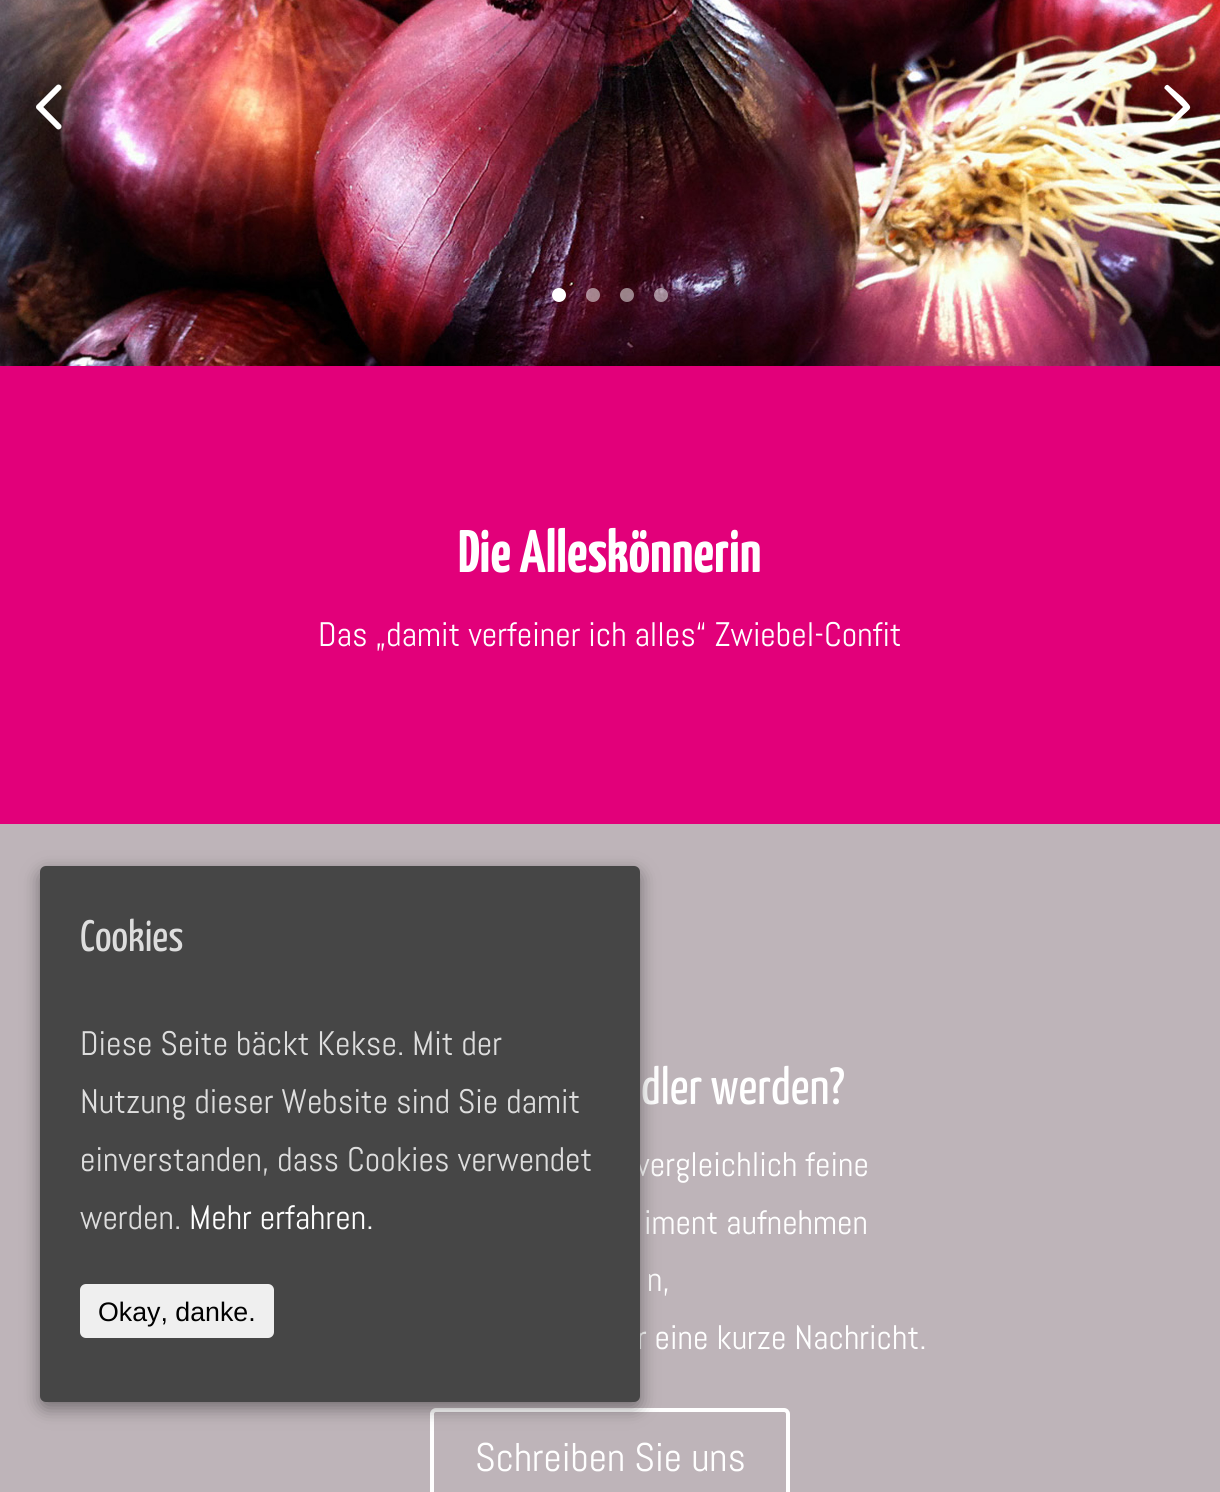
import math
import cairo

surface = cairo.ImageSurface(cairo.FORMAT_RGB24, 1220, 1492)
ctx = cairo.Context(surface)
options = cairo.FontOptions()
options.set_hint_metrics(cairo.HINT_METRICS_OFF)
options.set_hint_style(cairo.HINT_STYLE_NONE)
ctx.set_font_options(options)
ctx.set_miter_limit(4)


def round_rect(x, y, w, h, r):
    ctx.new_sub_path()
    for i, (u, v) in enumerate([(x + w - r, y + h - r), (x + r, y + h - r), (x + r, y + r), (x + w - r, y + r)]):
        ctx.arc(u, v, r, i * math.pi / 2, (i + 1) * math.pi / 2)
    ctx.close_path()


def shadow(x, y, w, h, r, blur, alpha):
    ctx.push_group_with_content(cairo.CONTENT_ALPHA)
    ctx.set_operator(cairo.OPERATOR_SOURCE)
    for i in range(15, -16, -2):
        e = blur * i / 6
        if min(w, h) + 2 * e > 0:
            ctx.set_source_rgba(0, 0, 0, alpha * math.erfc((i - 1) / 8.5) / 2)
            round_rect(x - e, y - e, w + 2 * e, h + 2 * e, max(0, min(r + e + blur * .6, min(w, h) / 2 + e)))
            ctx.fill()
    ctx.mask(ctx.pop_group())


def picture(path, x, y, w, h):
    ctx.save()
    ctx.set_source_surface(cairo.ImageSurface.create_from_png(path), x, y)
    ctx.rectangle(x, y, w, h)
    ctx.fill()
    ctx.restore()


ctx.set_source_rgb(1, 1, 1)
ctx.paint()
picture("img1.png", 0, 0, 1220, 366)
picture("img2.png", 36, 84, 26, 46)
ctx.set_source_rgb(1, 1, 1)
ctx.new_path()
ctx.move_to(1165, 129)
ctx.curve_to(1168, 131, 1171, 127, 1173, 125)
ctx.line_to(1179, 119)
ctx.curve_to(1192, 106, 1194, 110, 1183, 98)
ctx.line_to(1168, 85)
ctx.curve_to(1166, 84, 1163, 88, 1165, 89)
ctx.line_to(1183, 107)
ctx.line_to(1168, 122)
ctx.curve_to(1167, 123, 1162, 126, 1165, 129)
ctx.close_path()
ctx.fill()
ctx.arc(559, 295, 7, 0, 2 * math.pi)
ctx.fill()
ctx.set_source_rgba(1, 1, 1, 0.5)
ctx.arc(593, 295, 7, 0, 2 * math.pi)
ctx.fill()
ctx.arc(627, 295, 7, 0, 2 * math.pi)
ctx.fill()
ctx.arc(661, 295, 7, 0, 2 * math.pi)
ctx.fill()
ctx.set_source_rgb(0.886, 0, 0.478)
ctx.rectangle(0, 366, 1220, 458)
ctx.fill()
ctx.select_font_face("Yanone Kaffeesatz", cairo.FONT_SLANT_NORMAL, cairo.FONT_WEIGHT_BOLD)
ctx.set_font_size(60)
ctx.set_source_rgb(1, 1, 1)
ctx.move_to(458, 572)
ctx.show_text("Die Alleskönnerin")
ctx.select_font_face("Abel")
ctx.set_font_size(34)
ctx.move_to(318, 646)
ctx.show_text("Das „damit verfeiner ich alles“ Zwiebel-Confit")
ctx.set_source_rgb(0.745, 0.706, 0.725)
ctx.rectangle(0, 824, 1220, 668)
ctx.fill()
ctx.select_font_face("Yanone Kaffeesatz")
ctx.set_font_size(52)
ctx.set_source_rgb(1, 1, 1)
ctx.move_to(641, 1104)
ctx.show_text("dler werden?")
ctx.select_font_face("Abel")
ctx.set_font_size(34)
ctx.move_to(636, 1176)
ctx.show_text("vergleichlich feine")
ctx.move_to(644, 1234)
ctx.show_text("iment aufnehmen")
ctx.move_to(647, 1291)
ctx.show_text("n,")
ctx.move_to(637, 1349)
ctx.show_text("r eine kurze Nachricht.")
round_rect(432, 1410, 356, 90, 4)
ctx.set_line_width(4)
ctx.stroke()
ctx.set_font_size(40)
ctx.move_to(475, 1471)
ctx.show_text("Schreiben Sie uns")
ctx.set_source_rgb(0, 0, 0)
shadow(40, 872, 600, 536, 6, 9, 0.4)
ctx.set_source_rgb(0.275, 0.275, 0.275)
round_rect(40, 866, 600, 536, 6)
ctx.fill()
ctx.select_font_face("Yanone Kaffeesatz")
ctx.set_font_size(44)
ctx.set_source_rgb(0.867, 0.867, 0.867)
ctx.move_to(80, 951)
ctx.show_text("Cookies")
ctx.select_font_face("Abel")
ctx.set_font_size(34)
ctx.move_to(80, 1055)
ctx.show_text("Diese Seite bäckt Kekse. Mit der")
ctx.move_to(80, 1113)
ctx.show_text("Nutzung dieser Website sind Sie damit")
ctx.move_to(80, 1171)
ctx.show_text("einverstanden, dass Cookies verwendet")
ctx.move_to(80, 1229)
ctx.show_text("werden.")
ctx.set_source_rgb(1, 1, 1)
ctx.move_to(189, 1229)
ctx.show_text("Mehr erfahren.")
ctx.set_source_rgb(0.937, 0.937, 0.937)
round_rect(80, 1284, 194, 54, 6)
ctx.fill()
ctx.select_font_face("Liberation Sans")
ctx.set_font_size(26.75)
ctx.set_source_rgb(0, 0, 0)
ctx.move_to(98, 1321)
ctx.show_text("Okay, danke.")
surface.write_to_png("page.png")
